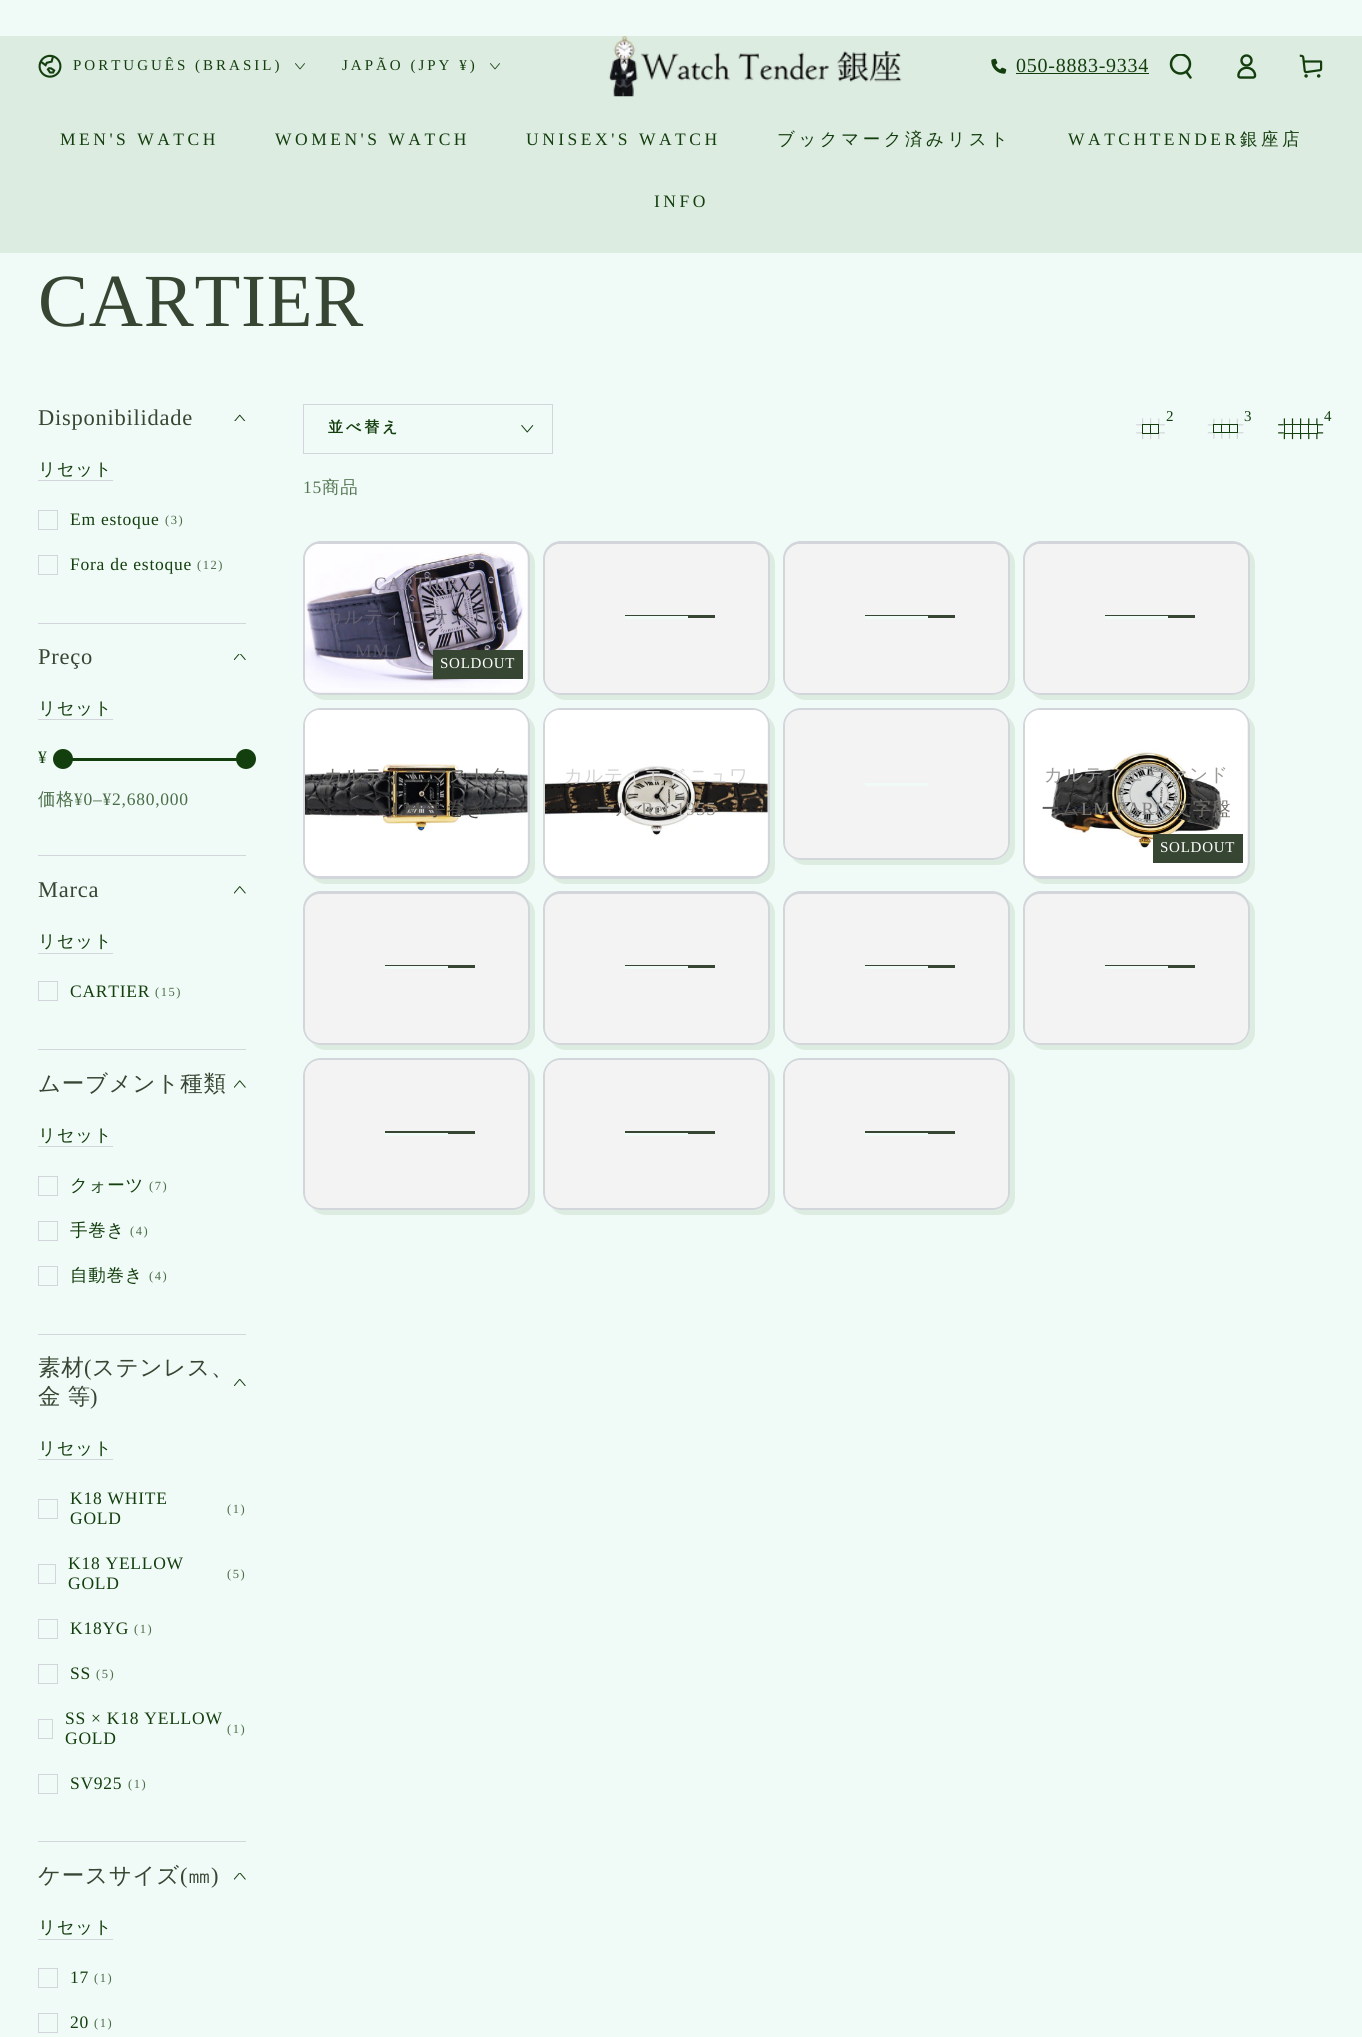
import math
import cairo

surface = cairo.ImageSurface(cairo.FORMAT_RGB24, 1362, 2037)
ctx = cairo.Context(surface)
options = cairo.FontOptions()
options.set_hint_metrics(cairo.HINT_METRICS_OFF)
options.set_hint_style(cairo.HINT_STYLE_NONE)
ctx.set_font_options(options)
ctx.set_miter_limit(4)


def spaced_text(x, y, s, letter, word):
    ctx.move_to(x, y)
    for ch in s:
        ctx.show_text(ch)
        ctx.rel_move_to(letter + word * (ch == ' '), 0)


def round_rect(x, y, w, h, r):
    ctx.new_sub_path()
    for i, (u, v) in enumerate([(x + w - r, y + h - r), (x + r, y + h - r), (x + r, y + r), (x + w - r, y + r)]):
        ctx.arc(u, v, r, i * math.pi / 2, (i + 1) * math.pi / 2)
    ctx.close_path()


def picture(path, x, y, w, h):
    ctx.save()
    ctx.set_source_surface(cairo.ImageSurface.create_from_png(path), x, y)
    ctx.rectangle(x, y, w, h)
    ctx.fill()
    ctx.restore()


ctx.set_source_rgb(0.941, 0.984, 0.965)
ctx.paint()
ctx.set_source_rgb(0.867, 0.925, 0.882)
ctx.rectangle(0, 36, 1362, 217)
ctx.fill()
picture("img1.png", 38, 54, 24, 24)
ctx.select_font_face("Liberation Serif")
ctx.set_font_size(15)
ctx.set_source_rgb(0.075, 0.243, 0.051)
spaced_text(73, 70, "PORTUGUÊS (BRASIL)", 3, 0)
picture("img2.png", 295, 63, 10, 7)
spaced_text(342, 70, "JAPÃO (JPY ¥)", 3, 0)
picture("img2.png", 490, 63, 10, 7)
picture("img3.png", 608, 36, 294, 61)
picture("img4.png", 991, 58, 16, 16)
ctx.set_font_size(20)
spaced_text(1016, 72, "050-8883-9334", 0.75, 0)
ctx.rectangle(1016, 73, 133, 1)
ctx.fill()
ctx.save()
ctx.rectangle(1169, 54, 25, 25)
ctx.clip()
ctx.arc(1180.5, 64, 9.5, 0, 2 * math.pi)
ctx.set_line_width(2.5)
ctx.stroke()
ctx.restore()
ctx.new_path()
ctx.move_to(1186.5, 72)
ctx.line_to(1190.5, 77.5)
ctx.set_line_width(2.5)
ctx.set_line_cap(cairo.LINE_CAP_ROUND)
ctx.stroke()
picture("img5.png", 1237, 54, 20, 25)
picture("img6.png", 1299, 54, 24, 24)
ctx.set_font_size(17.5)
spaced_text(60, 145, "MEN'S WATCH", 3.5, 0)
spaced_text(275, 145, "WOMEN'S WATCH", 3.5, 0)
spaced_text(526, 145, "UNISEX'S WATCH", 3.5, 0)
ctx.select_font_face("WenQuanYi Zen Hei Medium")
spaced_text(777, 145, "ブックマーク済みリスト", 3.5, 0)
ctx.select_font_face("Liberation Serif")
spaced_text(1068, 145, "WATCHTENDER", 3.5, 0)
ctx.select_font_face("WenQuanYi Zen Hei Medium")
spaced_text(1240, 145, "銀座店", 3.5, 0)
ctx.select_font_face("Liberation Serif")
spaced_text(654, 207, "INFO", 3.5, 0)
ctx.set_font_size(75)
ctx.set_source_rgb(0.212, 0.275, 0.2)
spaced_text(38, 326, "CARTIER", 0.75, 0)
ctx.set_font_size(22.5)
spaced_text(38, 425, "Disponibilidade", 0.75, 0)
picture("img7.png", 234, 414, 12, 7)
ctx.select_font_face("WenQuanYi Zen Hei Medium")
ctx.set_font_size(17.5)
ctx.set_source_rgb(0.075, 0.243, 0.051)
spaced_text(38, 475, "リセット", 0.75, 0)
ctx.set_source_rgb(0.824, 0.835, 0.851)
ctx.rectangle(38, 480, 75, 1)
ctx.fill()
ctx.rectangle(38.5, 510.5, 19, 19)
ctx.set_line_width(1)
ctx.set_line_cap(cairo.LINE_CAP_BUTT)
ctx.stroke()
ctx.select_font_face("Liberation Serif")
ctx.set_source_rgb(0.075, 0.243, 0.051)
spaced_text(70, 525, "Em estoque", 0.75, 0)
ctx.set_font_size(12.5)
ctx.set_source_rgb(0.29, 0.427, 0.278)
spaced_text(165, 524, "(3)", 1.5, 0)
ctx.rectangle(38.5, 555.5, 19, 19)
ctx.set_source_rgb(0.824, 0.835, 0.851)
ctx.stroke()
ctx.set_font_size(17.5)
ctx.set_source_rgb(0.075, 0.243, 0.051)
spaced_text(70, 570, "Fora de estoque", 0.75, 0)
ctx.set_font_size(12.5)
ctx.set_source_rgb(0.29, 0.427, 0.278)
spaced_text(197, 569, "(12)", 1.5, 0)
ctx.set_source_rgb(0.824, 0.835, 0.851)
ctx.rectangle(38, 623, 208, 1)
ctx.fill()
ctx.set_font_size(22.5)
ctx.set_source_rgb(0.212, 0.275, 0.2)
spaced_text(38, 664, "Preço", 0.75, 0)
picture("img8.png", 234, 654, 12, 7)
ctx.select_font_face("WenQuanYi Zen Hei Medium")
ctx.set_font_size(17.5)
ctx.set_source_rgb(0.075, 0.243, 0.051)
spaced_text(38, 714, "リセット", 0.75, 0)
ctx.set_source_rgb(0.824, 0.835, 0.851)
ctx.rectangle(38, 719, 75, 1)
ctx.fill()
ctx.select_font_face("Liberation Serif")
ctx.set_source_rgb(0.075, 0.243, 0.051)
spaced_text(38, 763, "¥", 0.75, 0)
ctx.rectangle(72, 758, 165, 3)
ctx.fill()
ctx.arc(63, 759, 10, 0, 2 * math.pi)
ctx.fill()
ctx.arc(246, 759, 10, 0, 2 * math.pi)
ctx.fill()
ctx.select_font_face("WenQuanYi Zen Hei Medium")
ctx.set_source_rgb(0.29, 0.427, 0.278)
spaced_text(38, 805, "価格", 0.75, 0)
ctx.select_font_face("Liberation Serif")
spaced_text(74, 805, "¥0–¥2,680,000", 0.75, 0)
ctx.set_source_rgb(0.824, 0.835, 0.851)
ctx.rectangle(38, 855, 208, 1)
ctx.fill()
ctx.set_font_size(22.5)
ctx.set_source_rgb(0.212, 0.275, 0.2)
spaced_text(38, 897, "Marca", 0.75, 0)
picture("img9.png", 234, 886, 12, 8)
ctx.select_font_face("WenQuanYi Zen Hei Medium")
ctx.set_font_size(17.5)
ctx.set_source_rgb(0.075, 0.243, 0.051)
spaced_text(38, 947, "リセット", 0.75, 0)
ctx.set_source_rgb(0.824, 0.835, 0.851)
ctx.rectangle(38, 953, 75, 1)
ctx.fill()
ctx.rectangle(38.5, 981.5, 19, 19)
ctx.stroke()
ctx.select_font_face("Liberation Serif")
ctx.set_source_rgb(0.075, 0.243, 0.051)
spaced_text(70, 997, "CARTIER", 0.75, 0)
ctx.set_font_size(12.5)
ctx.set_source_rgb(0.29, 0.427, 0.278)
spaced_text(155, 996, "(15)", 1.5, 0)
ctx.set_source_rgb(0.824, 0.835, 0.851)
ctx.rectangle(38, 1049, 208, 1)
ctx.fill()
ctx.select_font_face("WenQuanYi Zen Hei Medium")
ctx.set_font_size(22.5)
ctx.set_source_rgb(0.212, 0.275, 0.2)
spaced_text(38, 1091, "ムーブメント種類", 0.75, 0)
picture("img10.png", 234, 1080, 12, 8)
ctx.set_font_size(17.5)
ctx.set_source_rgb(0.075, 0.243, 0.051)
spaced_text(38, 1141, "リセット", 0.75, 0)
ctx.set_source_rgb(0.824, 0.835, 0.851)
ctx.rectangle(38, 1146, 75, 1)
ctx.fill()
ctx.rectangle(38.5, 1176.5, 19, 19)
ctx.stroke()
ctx.set_source_rgb(0.075, 0.243, 0.051)
spaced_text(70, 1191, "クォーツ", 0.75, 0)
ctx.select_font_face("Liberation Serif")
ctx.set_font_size(12.5)
ctx.set_source_rgb(0.29, 0.427, 0.278)
spaced_text(149, 1190, "(7)", 1.5, 0)
ctx.rectangle(38.5, 1221.5, 19, 19)
ctx.set_source_rgb(0.824, 0.835, 0.851)
ctx.stroke()
ctx.select_font_face("WenQuanYi Zen Hei Medium")
ctx.set_font_size(17.5)
ctx.set_source_rgb(0.075, 0.243, 0.051)
spaced_text(70, 1236, "手巻き", 0.75, 0)
ctx.select_font_face("Liberation Serif")
ctx.set_font_size(12.5)
ctx.set_source_rgb(0.29, 0.427, 0.278)
spaced_text(130, 1235, "(4)", 1.5, 0)
ctx.rectangle(38.5, 1266.5, 19, 19)
ctx.set_source_rgb(0.824, 0.835, 0.851)
ctx.stroke()
ctx.select_font_face("WenQuanYi Zen Hei Medium")
ctx.set_font_size(17.5)
ctx.set_source_rgb(0.075, 0.243, 0.051)
spaced_text(70, 1281, "自動巻き", 0.75, 0)
ctx.select_font_face("Liberation Serif")
ctx.set_font_size(12.5)
ctx.set_source_rgb(0.29, 0.427, 0.278)
spaced_text(149, 1280, "(4)", 1.5, 0)
ctx.set_source_rgb(0.824, 0.835, 0.851)
ctx.rectangle(38, 1334, 208, 1)
ctx.fill()
ctx.select_font_face("WenQuanYi Zen Hei Medium")
ctx.set_font_size(22.5)
ctx.set_source_rgb(0.212, 0.275, 0.2)
spaced_text(38, 1375, "素材", 0.75, 0)
ctx.select_font_face("Liberation Serif")
spaced_text(84, 1375, "(", 0.75, 0)
ctx.select_font_face("WenQuanYi Zen Hei Medium")
spaced_text(92, 1375, "ステンレス、", 0.75, 0)
spaced_text(38, 1404, "金 等", 0.75, -1)
ctx.select_font_face("Liberation Serif")
spaced_text(90, 1404, ")", 0.75, 0)
picture("img11.png", 234, 1379, 12, 7)
ctx.select_font_face("WenQuanYi Zen Hei Medium")
ctx.set_font_size(17.5)
ctx.set_source_rgb(0.075, 0.243, 0.051)
spaced_text(38, 1454, "リセット", 0.75, 0)
ctx.set_source_rgb(0.824, 0.835, 0.851)
ctx.rectangle(38, 1459, 75, 1)
ctx.fill()
ctx.rectangle(38.5, 1499.5, 19, 19)
ctx.stroke()
ctx.select_font_face("Liberation Serif")
ctx.set_source_rgb(0.075, 0.243, 0.051)
spaced_text(70, 1504, "K18 WHITE", 0.75, 0)
ctx.set_font_size(12.5)
ctx.set_source_rgb(0.29, 0.427, 0.278)
spaced_text(227, 1513, "(1)", 1.5, 0)
ctx.set_font_size(17.5)
ctx.set_source_rgb(0.075, 0.243, 0.051)
spaced_text(70, 1524, "GOLD", 0.75, 0)
ctx.rectangle(38.5, 1564.5, 17, 19)
ctx.set_source_rgb(0.824, 0.835, 0.851)
ctx.stroke()
ctx.set_source_rgb(0.075, 0.243, 0.051)
spaced_text(68, 1569, "K18 YELLOW", 0.75, 0)
ctx.set_font_size(12.5)
ctx.set_source_rgb(0.29, 0.427, 0.278)
spaced_text(227, 1578, "(5)", 1.5, 0)
ctx.set_font_size(17.5)
ctx.set_source_rgb(0.075, 0.243, 0.051)
spaced_text(68, 1589, "GOLD", 0.75, 0)
ctx.rectangle(38.5, 1619.5, 19, 19)
ctx.set_source_rgb(0.824, 0.835, 0.851)
ctx.stroke()
ctx.set_source_rgb(0.075, 0.243, 0.051)
spaced_text(70, 1634, "K18YG", 0.75, 0)
ctx.set_font_size(12.5)
ctx.set_source_rgb(0.29, 0.427, 0.278)
spaced_text(134, 1633, "(1)", 1.5, 0)
ctx.rectangle(38.5, 1664.5, 19, 19)
ctx.set_source_rgb(0.824, 0.835, 0.851)
ctx.stroke()
ctx.set_font_size(17.5)
ctx.set_source_rgb(0.075, 0.243, 0.051)
spaced_text(70, 1679, "SS", 0.75, 0)
ctx.set_font_size(12.5)
ctx.set_source_rgb(0.29, 0.427, 0.278)
spaced_text(96, 1678, "(5)", 1.5, 0)
ctx.rectangle(38.5, 1719.5, 14, 19)
ctx.set_source_rgb(0.824, 0.835, 0.851)
ctx.stroke()
ctx.set_font_size(17.5)
ctx.set_source_rgb(0.075, 0.243, 0.051)
spaced_text(65, 1724, "SS × K18 YELLOW", 0.75, 0)
ctx.set_font_size(12.5)
ctx.set_source_rgb(0.29, 0.427, 0.278)
spaced_text(227, 1733, "(1)", 1.5, 0)
ctx.set_font_size(17.5)
ctx.set_source_rgb(0.075, 0.243, 0.051)
spaced_text(65, 1744, "GOLD", 0.75, 0)
ctx.rectangle(38.5, 1774.5, 19, 19)
ctx.set_source_rgb(0.824, 0.835, 0.851)
ctx.stroke()
ctx.set_source_rgb(0.075, 0.243, 0.051)
spaced_text(70, 1789, "SV925", 0.75, 0)
ctx.set_font_size(12.5)
ctx.set_source_rgb(0.29, 0.427, 0.278)
spaced_text(128, 1788, "(1)", 1.5, 0)
ctx.set_source_rgb(0.824, 0.835, 0.851)
ctx.rectangle(38, 1841, 208, 1)
ctx.fill()
ctx.select_font_face("WenQuanYi Zen Hei Medium")
ctx.set_font_size(22.5)
ctx.set_source_rgb(0.212, 0.275, 0.2)
spaced_text(38, 1883, "ケースサイズ", 0.75, 0)
ctx.select_font_face("Liberation Serif")
spaced_text(180, 1883, "(", 0.75, 0)
ctx.select_font_face("WenQuanYi Zen Hei Medium")
spaced_text(188, 1883, "㎜", 0.75, 0)
ctx.select_font_face("Liberation Serif")
spaced_text(211, 1883, ")", 0.75, 0)
picture("img12.png", 234, 1873, 12, 7)
ctx.select_font_face("WenQuanYi Zen Hei Medium")
ctx.set_font_size(17.5)
ctx.set_source_rgb(0.075, 0.243, 0.051)
spaced_text(38, 1933, "リセット", 0.75, 0)
ctx.set_source_rgb(0.824, 0.835, 0.851)
ctx.rectangle(38, 1939, 75, 1)
ctx.fill()
ctx.rectangle(38.5, 1968.5, 19, 19)
ctx.stroke()
ctx.select_font_face("Liberation Serif")
ctx.set_source_rgb(0.075, 0.243, 0.051)
spaced_text(70, 1983, "17", 0.75, 0)
ctx.set_font_size(12.5)
ctx.set_source_rgb(0.29, 0.427, 0.278)
spaced_text(94, 1982, "(1)", 1.5, 0)
ctx.rectangle(38.5, 2013.5, 19, 19)
ctx.set_source_rgb(0.824, 0.835, 0.851)
ctx.stroke()
ctx.set_font_size(17.5)
ctx.set_source_rgb(0.075, 0.243, 0.051)
spaced_text(70, 2028, "20", 0.75, 0)
ctx.set_font_size(12.5)
ctx.set_source_rgb(0.29, 0.427, 0.278)
spaced_text(94, 2027, "(1)", 1.5, 0)
ctx.set_font_size(15)
ctx.set_source_rgb(0.075, 0.243, 0.051)
ctx.move_to(1166, 421)
ctx.show_text("2")
picture("img13.png", 1136, 418, 29, 22)
ctx.move_to(1244, 421)
ctx.show_text("3")
picture("img14.png", 1207, 418, 37, 21)
ctx.move_to(1324, 421)
ctx.show_text("4")
picture("img15.png", 1278, 418, 46, 22)
ctx.rectangle(303.5, 404.5, 249, 49)
ctx.set_source_rgb(0.824, 0.835, 0.851)
ctx.stroke()
ctx.select_font_face("WenQuanYi Zen Hei", cairo.FONT_SLANT_NORMAL, cairo.FONT_WEIGHT_BOLD)
ctx.set_source_rgb(0.075, 0.243, 0.051)
spaced_text(328, 432, "並べ替え", 3, 0)
picture("img16.png", 521, 425, 13, 8)
ctx.select_font_face("Liberation Serif")
ctx.set_font_size(17.5)
ctx.set_source_rgb(0.333, 0.467, 0.325)
spaced_text(303, 493, "15", 0.75, 0)
ctx.select_font_face("WenQuanYi Zen Hei Medium")
spaced_text(322, 493, "商品", 0.75, 0)
ctx.set_source_rgb(0.867, 0.925, 0.882)
ctx.new_path()
ctx.move_to(312, 693)
ctx.curve_to(315, 697, 320, 700, 326, 700)
ctx.line_to(517, 700)
ctx.curve_to(527, 700, 535, 692, 535, 682)
ctx.line_to(535, 564)
ctx.curve_to(535, 558, 532, 552, 527, 549)
ctx.curve_to(529, 552, 530, 555, 530, 559)
ctx.line_to(530, 678)
ctx.curve_to(530, 687, 522, 695, 512, 695)
ctx.line_to(320, 695)
ctx.curve_to(317, 695, 314, 694, 312, 693)
ctx.close_path()
ctx.fill()
round_rect(304.5, 542.5, 224, 151, 16.5)
ctx.set_source_rgb(0.824, 0.835, 0.851)
ctx.set_line_width(3)
ctx.stroke()
ctx.set_source_rgb(0.953, 0.953, 0.953)
round_rect(305, 544, 223, 149, 15)
ctx.fill()
picture("img17.png", 305, 544, 222, 148)
ctx.select_font_face("Liberation Serif")
ctx.set_font_size(18.75)
ctx.set_source_rgb(0.498, 0.475, 0.533)
spaced_text(374, 590, "CARTIER", 0.75, 0)
ctx.select_font_face("WenQuanYi Zen Hei Medium")
ctx.set_source_rgb(0.384, 0.373, 0.447)
spaced_text(324, 623, "カルティエ サントス", 0.75, -1)
ctx.select_font_face("Liberation Serif")
ctx.set_source_rgb(0.357, 0.345, 0.416)
spaced_text(355, 657, "MM /", 0.75, 0)
ctx.set_source_rgb(0.212, 0.275, 0.2)
ctx.rectangle(433, 650, 90, 29)
ctx.fill()
ctx.set_font_size(15)
ctx.set_source_rgb(1, 1, 1)
spaced_text(440, 668, "SOLDOUT", 0.75, 0)
ctx.set_source_rgb(0.867, 0.925, 0.882)
ctx.new_path()
ctx.move_to(552, 693)
ctx.curve_to(555, 697, 560, 700, 566, 700)
ctx.line_to(757, 700)
ctx.curve_to(767, 700, 775, 692, 775, 682)
ctx.line_to(775, 564)
ctx.curve_to(775, 558, 772, 552, 767, 549)
ctx.curve_to(769, 552, 770, 555, 770, 559)
ctx.line_to(770, 678)
ctx.curve_to(770, 687, 762, 695, 752, 695)
ctx.line_to(560, 695)
ctx.curve_to(557, 695, 554, 694, 552, 693)
ctx.close_path()
ctx.fill()
round_rect(544.5, 542.5, 224, 151, 16.5)
ctx.set_source_rgb(0.824, 0.835, 0.851)
ctx.stroke()
ctx.set_source_rgb(0.953, 0.953, 0.953)
round_rect(545, 544, 223, 149, 15)
ctx.fill()
ctx.set_source_rgb(0.212, 0.275, 0.2)
ctx.rectangle(625, 615, 90, 3)
ctx.fill()
ctx.set_source_rgb(0.941, 0.984, 0.965)
ctx.rectangle(625, 616, 63, 3)
ctx.fill()
ctx.set_source_rgb(0.867, 0.925, 0.882)
ctx.new_path()
ctx.move_to(792, 693)
ctx.curve_to(795, 697, 800, 700, 806, 700)
ctx.line_to(997, 700)
ctx.curve_to(1007, 700, 1015, 692, 1015, 682)
ctx.line_to(1015, 564)
ctx.curve_to(1015, 558, 1012, 552, 1007, 549)
ctx.curve_to(1009, 552, 1010, 555, 1010, 559)
ctx.line_to(1010, 678)
ctx.curve_to(1010, 687, 1002, 695, 992, 695)
ctx.line_to(800, 695)
ctx.curve_to(797, 695, 794, 694, 792, 693)
ctx.close_path()
ctx.fill()
round_rect(784.5, 542.5, 224, 151, 16.5)
ctx.set_source_rgb(0.824, 0.835, 0.851)
ctx.stroke()
ctx.set_source_rgb(0.953, 0.953, 0.953)
round_rect(785, 544, 223, 149, 15)
ctx.fill()
ctx.set_source_rgb(0.212, 0.275, 0.2)
ctx.rectangle(865, 615, 90, 3)
ctx.fill()
ctx.set_source_rgb(0.941, 0.984, 0.965)
ctx.rectangle(865, 616, 63, 3)
ctx.fill()
ctx.set_source_rgb(0.867, 0.925, 0.882)
ctx.new_path()
ctx.move_to(1032, 693)
ctx.curve_to(1035, 697, 1040, 700, 1046, 700)
ctx.line_to(1237, 700)
ctx.curve_to(1247, 700, 1255, 692, 1255, 682)
ctx.line_to(1255, 564)
ctx.curve_to(1255, 558, 1252, 552, 1247, 549)
ctx.curve_to(1249, 552, 1250, 555, 1250, 559)
ctx.line_to(1250, 678)
ctx.curve_to(1250, 687, 1242, 695, 1232, 695)
ctx.line_to(1040, 695)
ctx.curve_to(1037, 695, 1034, 694, 1032, 693)
ctx.close_path()
ctx.fill()
round_rect(1024.5, 542.5, 224, 151, 16.5)
ctx.set_source_rgb(0.824, 0.835, 0.851)
ctx.stroke()
ctx.set_source_rgb(0.953, 0.953, 0.953)
round_rect(1025, 544, 223, 149, 15)
ctx.fill()
ctx.set_source_rgb(0.212, 0.275, 0.2)
ctx.rectangle(1105, 615, 90, 3)
ctx.fill()
ctx.set_source_rgb(0.941, 0.984, 0.965)
ctx.rectangle(1105, 616, 63, 3)
ctx.fill()
ctx.set_source_rgb(0.867, 0.925, 0.882)
ctx.new_path()
ctx.move_to(311, 876)
ctx.curve_to(315, 881, 320, 884, 326, 884)
ctx.line_to(517, 884)
ctx.curve_to(527, 884, 535, 876, 535, 866)
ctx.line_to(535, 731)
ctx.curve_to(535, 725, 532, 720, 528, 717)
ctx.curve_to(529, 719, 530, 722, 530, 725)
ctx.line_to(530, 861)
ctx.curve_to(530, 871, 522, 879, 512, 879)
ctx.line_to(320, 879)
ctx.curve_to(317, 879, 314, 878, 311, 876)
ctx.close_path()
ctx.fill()
round_rect(304.5, 709.5, 224, 168, 16.5)
ctx.set_source_rgb(0.824, 0.835, 0.851)
ctx.stroke()
ctx.set_source_rgb(0.953, 0.953, 0.953)
round_rect(305, 710, 223, 166, 15)
ctx.fill()
picture("img18.png", 305, 710, 223, 166)
ctx.select_font_face("WenQuanYi Zen Hei Medium")
ctx.set_font_size(18.75)
ctx.set_source_rgb(0.439, 0.431, 0.412)
spaced_text(324, 782, "カルティエ マストタ", 0.75, -1)
ctx.select_font_face("Liberation Serif")
ctx.set_source_rgb(0.361, 0.345, 0.306)
spaced_text(392, 815, "LM", 0.75, 0)
ctx.select_font_face("WenQuanYi Zen Hei Medium")
ctx.set_source_rgb(0.286, 0.278, 0.267)
spaced_text(427, 815, "手巻き", 0.75, 0)
ctx.set_source_rgb(0.867, 0.925, 0.882)
ctx.new_path()
ctx.move_to(551, 876)
ctx.curve_to(555, 881, 560, 884, 566, 884)
ctx.line_to(757, 884)
ctx.curve_to(767, 884, 775, 876, 775, 866)
ctx.line_to(775, 731)
ctx.curve_to(775, 725, 772, 720, 768, 717)
ctx.curve_to(769, 719, 770, 722, 770, 725)
ctx.line_to(770, 861)
ctx.curve_to(770, 871, 762, 879, 752, 879)
ctx.line_to(560, 879)
ctx.curve_to(557, 879, 554, 878, 551, 876)
ctx.close_path()
ctx.fill()
round_rect(544.5, 709.5, 224, 168, 16.5)
ctx.set_source_rgb(0.824, 0.835, 0.851)
ctx.stroke()
ctx.set_source_rgb(0.953, 0.953, 0.953)
round_rect(545, 710, 223, 166, 15)
ctx.fill()
picture("img19.png", 545, 710, 223, 166)
ctx.set_source_rgb(0.831, 0.831, 0.824)
spaced_text(564, 782, "カルティエ ベニュワ", 0.75, -1)
ctx.set_source_rgb(0.475, 0.459, 0.439)
spaced_text(596, 815, "ール", 0.75, 0)
ctx.select_font_face("Liberation Serif")
ctx.set_source_rgb(0.608, 0.592, 0.569)
spaced_text(641, 815, "Ref.1955", 0.75, 0)
ctx.set_source_rgb(0.867, 0.925, 0.882)
ctx.new_path()
ctx.move_to(792, 858)
ctx.curve_to(795, 862, 800, 865, 806, 865)
ctx.line_to(997, 865)
ctx.curve_to(1007, 865, 1015, 857, 1015, 847)
ctx.line_to(1015, 731)
ctx.curve_to(1015, 725, 1012, 720, 1008, 717)
ctx.curve_to(1009, 719, 1010, 722, 1010, 725)
ctx.line_to(1010, 842)
ctx.curve_to(1010, 852, 1002, 860, 992, 860)
ctx.line_to(800, 860)
ctx.curve_to(797, 860, 794, 859, 792, 858)
ctx.close_path()
ctx.fill()
round_rect(784.5, 709.5, 224, 149, 16.5)
ctx.set_source_rgb(0.824, 0.835, 0.851)
ctx.stroke()
ctx.set_source_rgb(0.953, 0.953, 0.953)
round_rect(785, 710, 223, 148, 15)
ctx.fill()
ctx.set_source_rgb(0.941, 0.984, 0.965)
ctx.rectangle(865, 783, 63, 3)
ctx.fill()
ctx.set_source_rgb(0.867, 0.925, 0.882)
ctx.new_path()
ctx.move_to(1031, 876)
ctx.curve_to(1035, 881, 1040, 884, 1046, 884)
ctx.line_to(1237, 884)
ctx.curve_to(1247, 884, 1255, 876, 1255, 866)
ctx.line_to(1255, 731)
ctx.curve_to(1255, 725, 1252, 720, 1248, 717)
ctx.curve_to(1249, 719, 1250, 722, 1250, 725)
ctx.line_to(1250, 861)
ctx.curve_to(1250, 871, 1242, 879, 1232, 879)
ctx.line_to(1040, 879)
ctx.curve_to(1037, 879, 1034, 878, 1031, 876)
ctx.close_path()
ctx.fill()
round_rect(1024.5, 709.5, 224, 168, 16.5)
ctx.set_source_rgb(0.824, 0.835, 0.851)
ctx.stroke()
ctx.set_source_rgb(0.953, 0.953, 0.953)
round_rect(1025, 710, 223, 166, 15)
ctx.fill()
picture("img20.png", 1025, 710, 222, 166)
ctx.select_font_face("WenQuanYi Zen Hei Medium")
ctx.set_source_rgb(0.608, 0.604, 0.596)
spaced_text(1044, 781, "カルティエ ヴァンド", 0.75, -1)
ctx.set_source_rgb(0.361, 0.357, 0.357)
spaced_text(1041, 815, "ーム", 0.75, 0)
ctx.select_font_face("Liberation Serif")
ctx.set_source_rgb(0.494, 0.486, 0.475)
spaced_text(1081, 815, "LM PARIS", 0.75, 0)
ctx.select_font_face("WenQuanYi Zen Hei Medium")
ctx.set_source_rgb(0.439, 0.431, 0.412)
spaced_text(1173, 815, "文字盤", 0.75, 0)
ctx.set_source_rgb(0.212, 0.275, 0.2)
ctx.rectangle(1153, 834, 90, 29)
ctx.fill()
ctx.select_font_face("Liberation Serif")
ctx.set_font_size(15)
ctx.set_source_rgb(1, 1, 1)
spaced_text(1160, 852, "SOLDOUT", 0.75, 0)
ctx.set_source_rgb(0.867, 0.925, 0.882)
ctx.new_path()
ctx.move_to(312, 1043)
ctx.curve_to(315, 1047, 320, 1050, 326, 1050)
ctx.line_to(517, 1050)
ctx.curve_to(527, 1050, 535, 1042, 535, 1032)
ctx.line_to(535, 914)
ctx.curve_to(535, 908, 532, 902, 527, 899)
ctx.curve_to(529, 902, 530, 905, 530, 909)
ctx.line_to(530, 1028)
ctx.curve_to(530, 1037, 522, 1045, 512, 1045)
ctx.line_to(320, 1045)
ctx.curve_to(317, 1045, 314, 1044, 312, 1043)
ctx.close_path()
ctx.fill()
round_rect(304.5, 892.5, 224, 151, 16.5)
ctx.set_source_rgb(0.824, 0.835, 0.851)
ctx.stroke()
ctx.set_source_rgb(0.953, 0.953, 0.953)
round_rect(305, 894, 223, 149, 15)
ctx.fill()
ctx.set_source_rgb(0.212, 0.275, 0.2)
ctx.rectangle(385, 965, 90, 3)
ctx.fill()
ctx.set_source_rgb(0.941, 0.984, 0.965)
ctx.rectangle(385, 966, 63, 3)
ctx.fill()
ctx.set_source_rgb(0.867, 0.925, 0.882)
ctx.new_path()
ctx.move_to(552, 1043)
ctx.curve_to(555, 1047, 560, 1050, 566, 1050)
ctx.line_to(757, 1050)
ctx.curve_to(767, 1050, 775, 1042, 775, 1032)
ctx.line_to(775, 914)
ctx.curve_to(775, 908, 772, 902, 767, 899)
ctx.curve_to(769, 902, 770, 905, 770, 909)
ctx.line_to(770, 1028)
ctx.curve_to(770, 1037, 762, 1045, 752, 1045)
ctx.line_to(560, 1045)
ctx.curve_to(557, 1045, 554, 1044, 552, 1043)
ctx.close_path()
ctx.fill()
round_rect(544.5, 892.5, 224, 151, 16.5)
ctx.set_source_rgb(0.824, 0.835, 0.851)
ctx.stroke()
ctx.set_source_rgb(0.953, 0.953, 0.953)
round_rect(545, 894, 223, 149, 15)
ctx.fill()
ctx.set_source_rgb(0.212, 0.275, 0.2)
ctx.rectangle(625, 965, 90, 3)
ctx.fill()
ctx.set_source_rgb(0.941, 0.984, 0.965)
ctx.rectangle(625, 966, 63, 3)
ctx.fill()
ctx.set_source_rgb(0.867, 0.925, 0.882)
ctx.new_path()
ctx.move_to(792, 1043)
ctx.curve_to(795, 1047, 800, 1050, 806, 1050)
ctx.line_to(997, 1050)
ctx.curve_to(1007, 1050, 1015, 1042, 1015, 1032)
ctx.line_to(1015, 914)
ctx.curve_to(1015, 908, 1012, 902, 1007, 899)
ctx.curve_to(1009, 902, 1010, 905, 1010, 909)
ctx.line_to(1010, 1028)
ctx.curve_to(1010, 1037, 1002, 1045, 992, 1045)
ctx.line_to(800, 1045)
ctx.curve_to(797, 1045, 794, 1044, 792, 1043)
ctx.close_path()
ctx.fill()
round_rect(784.5, 892.5, 224, 151, 16.5)
ctx.set_source_rgb(0.824, 0.835, 0.851)
ctx.stroke()
ctx.set_source_rgb(0.953, 0.953, 0.953)
round_rect(785, 894, 223, 149, 15)
ctx.fill()
ctx.set_source_rgb(0.212, 0.275, 0.2)
ctx.rectangle(865, 965, 90, 3)
ctx.fill()
ctx.set_source_rgb(0.941, 0.984, 0.965)
ctx.rectangle(865, 966, 63, 3)
ctx.fill()
ctx.set_source_rgb(0.867, 0.925, 0.882)
ctx.new_path()
ctx.move_to(1032, 1043)
ctx.curve_to(1035, 1047, 1040, 1050, 1046, 1050)
ctx.line_to(1237, 1050)
ctx.curve_to(1247, 1050, 1255, 1042, 1255, 1032)
ctx.line_to(1255, 914)
ctx.curve_to(1255, 908, 1252, 902, 1247, 899)
ctx.curve_to(1249, 902, 1250, 905, 1250, 909)
ctx.line_to(1250, 1028)
ctx.curve_to(1250, 1037, 1242, 1045, 1232, 1045)
ctx.line_to(1040, 1045)
ctx.curve_to(1037, 1045, 1034, 1044, 1032, 1043)
ctx.close_path()
ctx.fill()
round_rect(1024.5, 892.5, 224, 151, 16.5)
ctx.set_source_rgb(0.824, 0.835, 0.851)
ctx.stroke()
ctx.set_source_rgb(0.953, 0.953, 0.953)
round_rect(1025, 894, 223, 149, 15)
ctx.fill()
ctx.set_source_rgb(0.212, 0.275, 0.2)
ctx.rectangle(1105, 965, 90, 3)
ctx.fill()
ctx.set_source_rgb(0.941, 0.984, 0.965)
ctx.rectangle(1105, 966, 63, 3)
ctx.fill()
ctx.set_source_rgb(0.867, 0.925, 0.882)
ctx.new_path()
ctx.move_to(312, 1208)
ctx.curve_to(315, 1212, 320, 1215, 326, 1215)
ctx.line_to(517, 1215)
ctx.curve_to(527, 1215, 535, 1207, 535, 1197)
ctx.line_to(535, 1081)
ctx.curve_to(535, 1075, 532, 1070, 528, 1067)
ctx.curve_to(529, 1069, 530, 1072, 530, 1075)
ctx.line_to(530, 1192)
ctx.curve_to(530, 1202, 522, 1210, 512, 1210)
ctx.line_to(320, 1210)
ctx.curve_to(317, 1210, 314, 1209, 312, 1208)
ctx.close_path()
ctx.fill()
round_rect(304.5, 1059.5, 224, 149, 16.5)
ctx.set_source_rgb(0.824, 0.835, 0.851)
ctx.stroke()
ctx.set_source_rgb(0.953, 0.953, 0.953)
round_rect(305, 1060, 223, 148, 15)
ctx.fill()
ctx.set_source_rgb(0.212, 0.275, 0.2)
ctx.rectangle(385, 1131, 90, 3)
ctx.fill()
ctx.set_source_rgb(0.941, 0.984, 0.965)
ctx.rectangle(385, 1133, 63, 3)
ctx.fill()
ctx.set_source_rgb(0.867, 0.925, 0.882)
ctx.new_path()
ctx.move_to(552, 1208)
ctx.curve_to(555, 1212, 560, 1215, 566, 1215)
ctx.line_to(757, 1215)
ctx.curve_to(767, 1215, 775, 1207, 775, 1197)
ctx.line_to(775, 1081)
ctx.curve_to(775, 1075, 772, 1070, 768, 1067)
ctx.curve_to(769, 1069, 770, 1072, 770, 1075)
ctx.line_to(770, 1192)
ctx.curve_to(770, 1202, 762, 1210, 752, 1210)
ctx.line_to(560, 1210)
ctx.curve_to(557, 1210, 554, 1209, 552, 1208)
ctx.close_path()
ctx.fill()
round_rect(544.5, 1059.5, 224, 149, 16.5)
ctx.set_source_rgb(0.824, 0.835, 0.851)
ctx.stroke()
ctx.set_source_rgb(0.953, 0.953, 0.953)
round_rect(545, 1060, 223, 148, 15)
ctx.fill()
ctx.set_source_rgb(0.212, 0.275, 0.2)
ctx.rectangle(625, 1131, 90, 3)
ctx.fill()
ctx.set_source_rgb(0.941, 0.984, 0.965)
ctx.rectangle(625, 1133, 63, 3)
ctx.fill()
ctx.set_source_rgb(0.867, 0.925, 0.882)
ctx.new_path()
ctx.move_to(792, 1208)
ctx.curve_to(795, 1212, 800, 1215, 806, 1215)
ctx.line_to(997, 1215)
ctx.curve_to(1007, 1215, 1015, 1207, 1015, 1197)
ctx.line_to(1015, 1081)
ctx.curve_to(1015, 1075, 1012, 1070, 1008, 1067)
ctx.curve_to(1009, 1069, 1010, 1072, 1010, 1075)
ctx.line_to(1010, 1192)
ctx.curve_to(1010, 1202, 1002, 1210, 992, 1210)
ctx.line_to(800, 1210)
ctx.curve_to(797, 1210, 794, 1209, 792, 1208)
ctx.close_path()
ctx.fill()
round_rect(784.5, 1059.5, 224, 149, 16.5)
ctx.set_source_rgb(0.824, 0.835, 0.851)
ctx.stroke()
ctx.set_source_rgb(0.953, 0.953, 0.953)
round_rect(785, 1060, 223, 148, 15)
ctx.fill()
ctx.set_source_rgb(0.212, 0.275, 0.2)
ctx.rectangle(865, 1131, 90, 3)
ctx.fill()
ctx.set_source_rgb(0.941, 0.984, 0.965)
ctx.rectangle(865, 1133, 63, 3)
ctx.fill()
surface.write_to_png("page.png")
